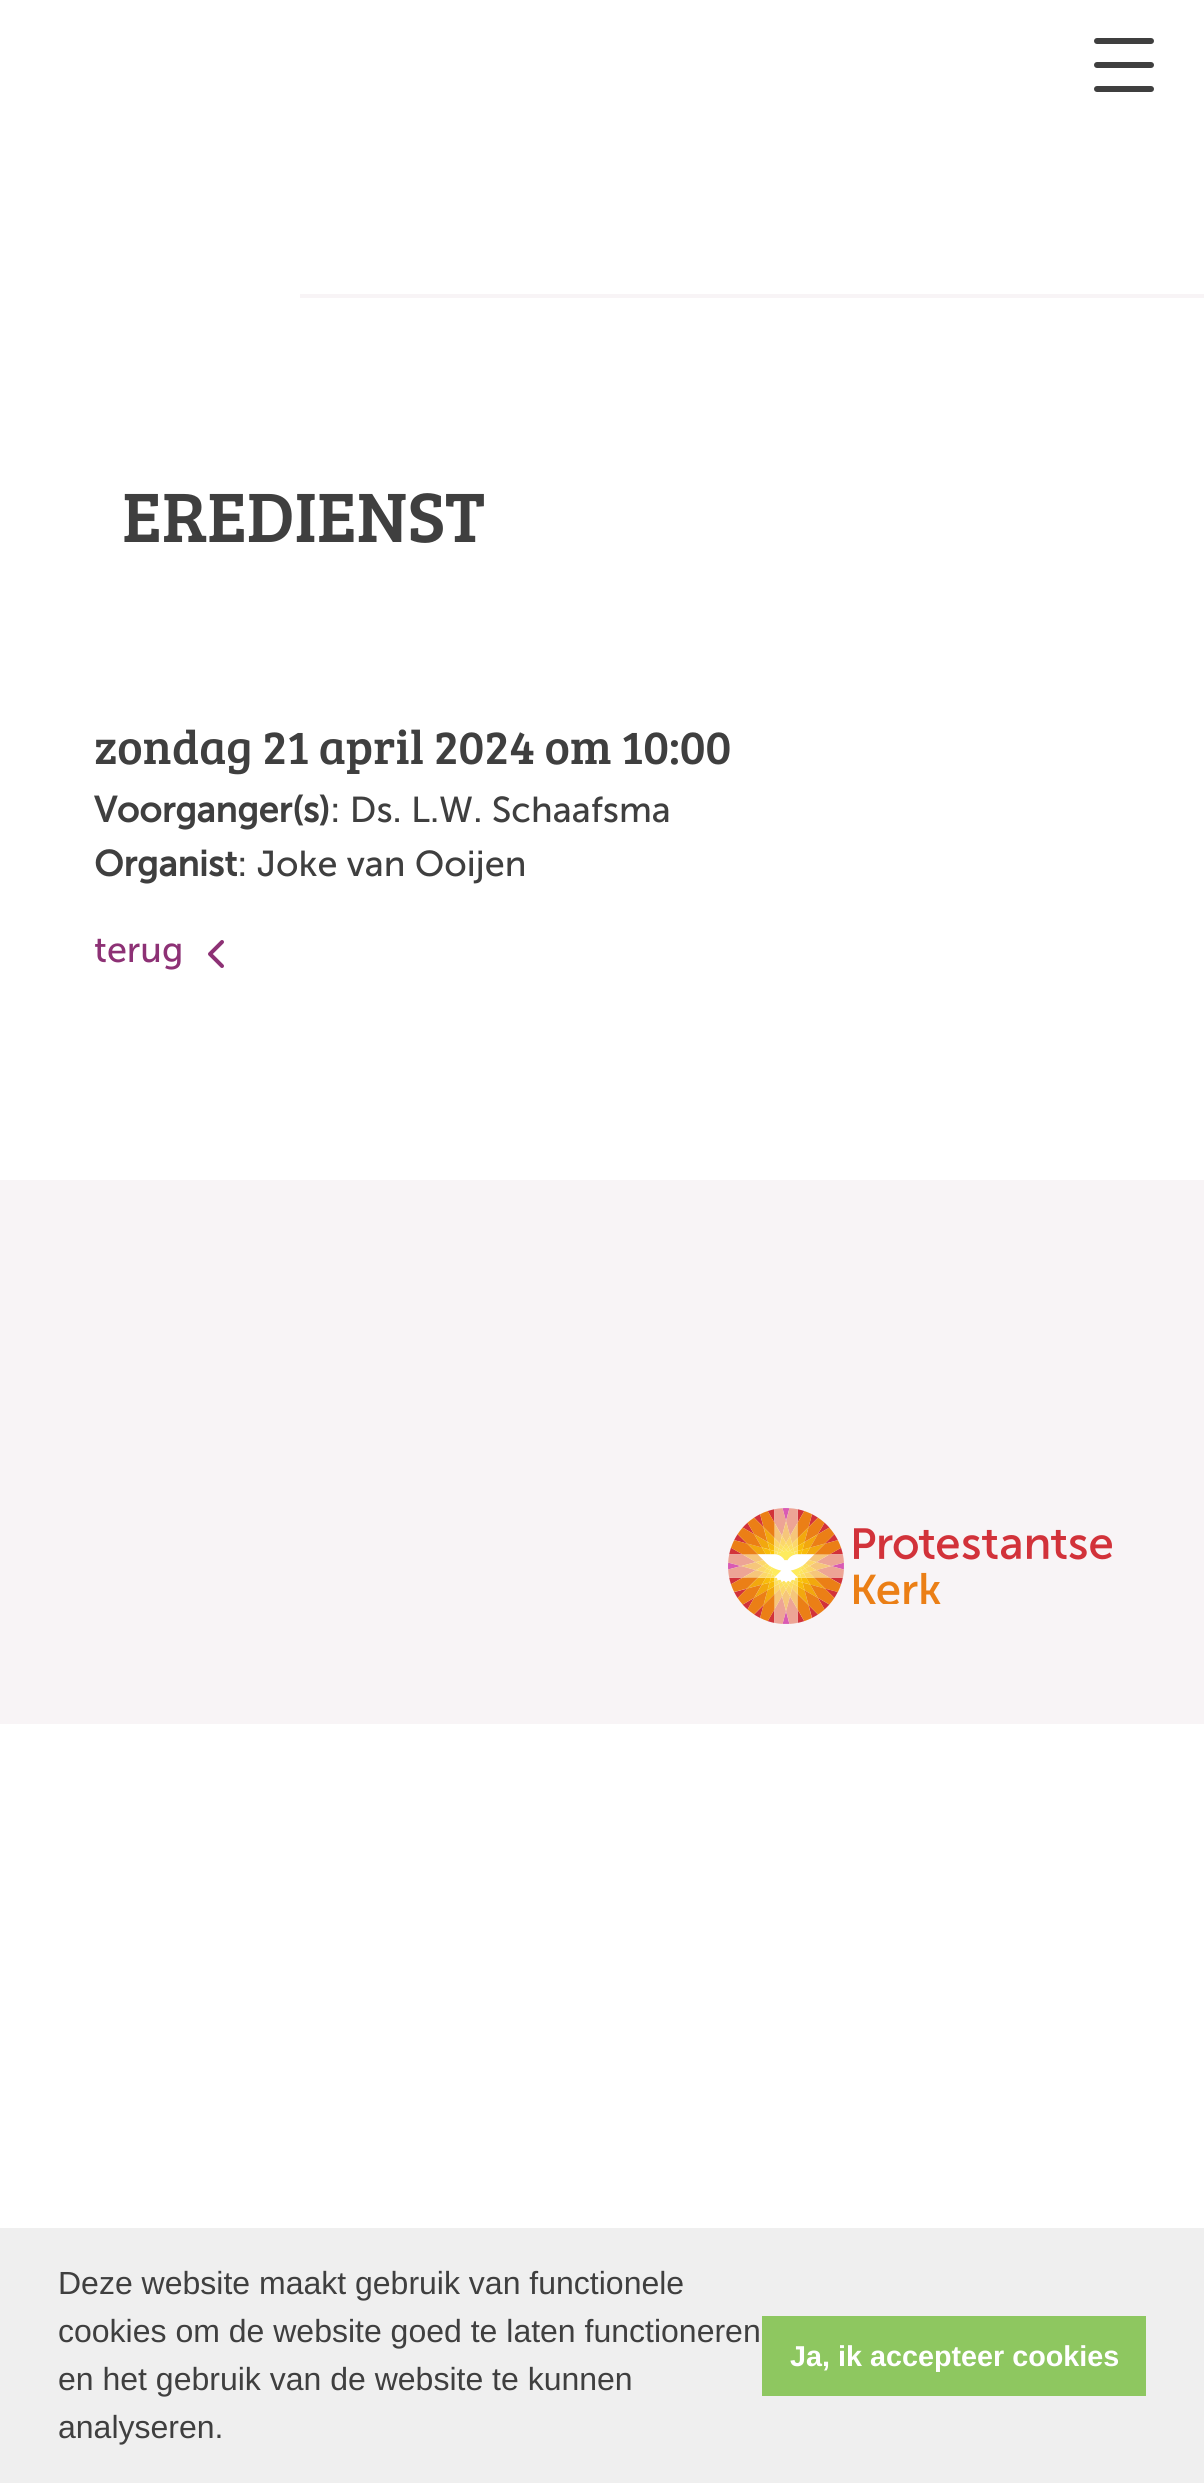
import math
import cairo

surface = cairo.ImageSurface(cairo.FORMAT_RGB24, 1204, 2483)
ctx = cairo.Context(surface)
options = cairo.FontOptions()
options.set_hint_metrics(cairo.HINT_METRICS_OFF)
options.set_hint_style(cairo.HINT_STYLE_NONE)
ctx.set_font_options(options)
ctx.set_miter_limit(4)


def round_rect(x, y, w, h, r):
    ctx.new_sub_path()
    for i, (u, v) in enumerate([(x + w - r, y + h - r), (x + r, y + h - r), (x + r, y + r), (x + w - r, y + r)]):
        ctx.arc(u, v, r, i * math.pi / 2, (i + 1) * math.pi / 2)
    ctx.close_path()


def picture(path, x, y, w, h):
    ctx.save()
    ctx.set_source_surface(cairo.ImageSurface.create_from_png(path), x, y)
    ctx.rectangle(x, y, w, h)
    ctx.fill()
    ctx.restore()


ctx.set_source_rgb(1, 1, 1)
ctx.paint()
ctx.set_source_rgb(0.247, 0.247, 0.247)
round_rect(1094, 38, 60, 6, 3)
ctx.fill()
round_rect(1094, 62, 60, 6, 3)
ctx.fill()
round_rect(1094, 86, 60, 6, 3)
ctx.fill()
ctx.set_source_rgb(0.969, 0.957, 0.961)
ctx.rectangle(300, 294, 904, 4)
ctx.fill()
ctx.select_font_face("Bree Serif")
ctx.set_font_size(72.25)
ctx.set_source_rgb(0.247, 0.247, 0.247)
ctx.move_to(122, 542)
ctx.show_text("EREDIENST")
ctx.set_font_size(48.2)
ctx.move_to(94, 764)
ctx.show_text("zondag 21 april 2024 om 10:00")
ctx.select_font_face("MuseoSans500", cairo.FONT_SLANT_NORMAL, cairo.FONT_WEIGHT_BOLD)
ctx.set_font_size(36)
ctx.move_to(94, 822)
ctx.show_text("Voorganger(s)")
ctx.select_font_face("MuseoSans500")
ctx.move_to(330, 822)
ctx.show_text(": Ds. L.W. Schaafsma")
ctx.select_font_face("MuseoSans500", cairo.FONT_SLANT_NORMAL, cairo.FONT_WEIGHT_BOLD)
ctx.move_to(94, 876)
ctx.show_text("Organist")
ctx.select_font_face("MuseoSans500")
ctx.move_to(237, 876)
ctx.show_text(": Joke van Ooijen")
ctx.set_source_rgb(0.553, 0.192, 0.459)
ctx.move_to(94, 962)
ctx.show_text("terug")
ctx.new_path()
ctx.move_to(222, 966)
ctx.line_to(210, 954)
ctx.line_to(222, 942)
ctx.set_line_width(4)
ctx.set_line_cap(cairo.LINE_CAP_ROUND)
ctx.set_line_join(cairo.LINE_JOIN_ROUND)
ctx.stroke()
ctx.set_source_rgb(0.969, 0.957, 0.961)
ctx.rectangle(0, 1180, 1204, 544)
ctx.fill()
picture("img1.png", 728, 1508, 116, 116)
picture("img2.png", 854, 1528, 258, 76)
ctx.set_source_rgb(0.937, 0.937, 0.937)
ctx.rectangle(0, 2228, 1204, 255)
ctx.fill()
ctx.select_font_face("Liberation Sans")
ctx.set_font_size(32)
ctx.set_source_rgb(0.247, 0.247, 0.247)
ctx.move_to(58, 2294)
ctx.show_text("Deze website maakt gebruik van functionele")
ctx.move_to(58, 2342)
ctx.show_text("cookies om de website goed te laten functioneren")
ctx.move_to(58, 2390)
ctx.show_text("en het gebruik van de website te kunnen")
ctx.move_to(58, 2438)
ctx.show_text("analyseren.")
ctx.set_source_rgb(0.557, 0.78, 0.376)
ctx.rectangle(762, 2316, 384, 80)
ctx.fill()
ctx.select_font_face("Liberation Sans", cairo.FONT_SLANT_NORMAL, cairo.FONT_WEIGHT_BOLD)
ctx.set_font_size(28.75)
ctx.set_source_rgb(1, 1, 1)
ctx.move_to(790, 2366)
ctx.show_text("Ja, ik accepteer cookies")
surface.write_to_png("page.png")
